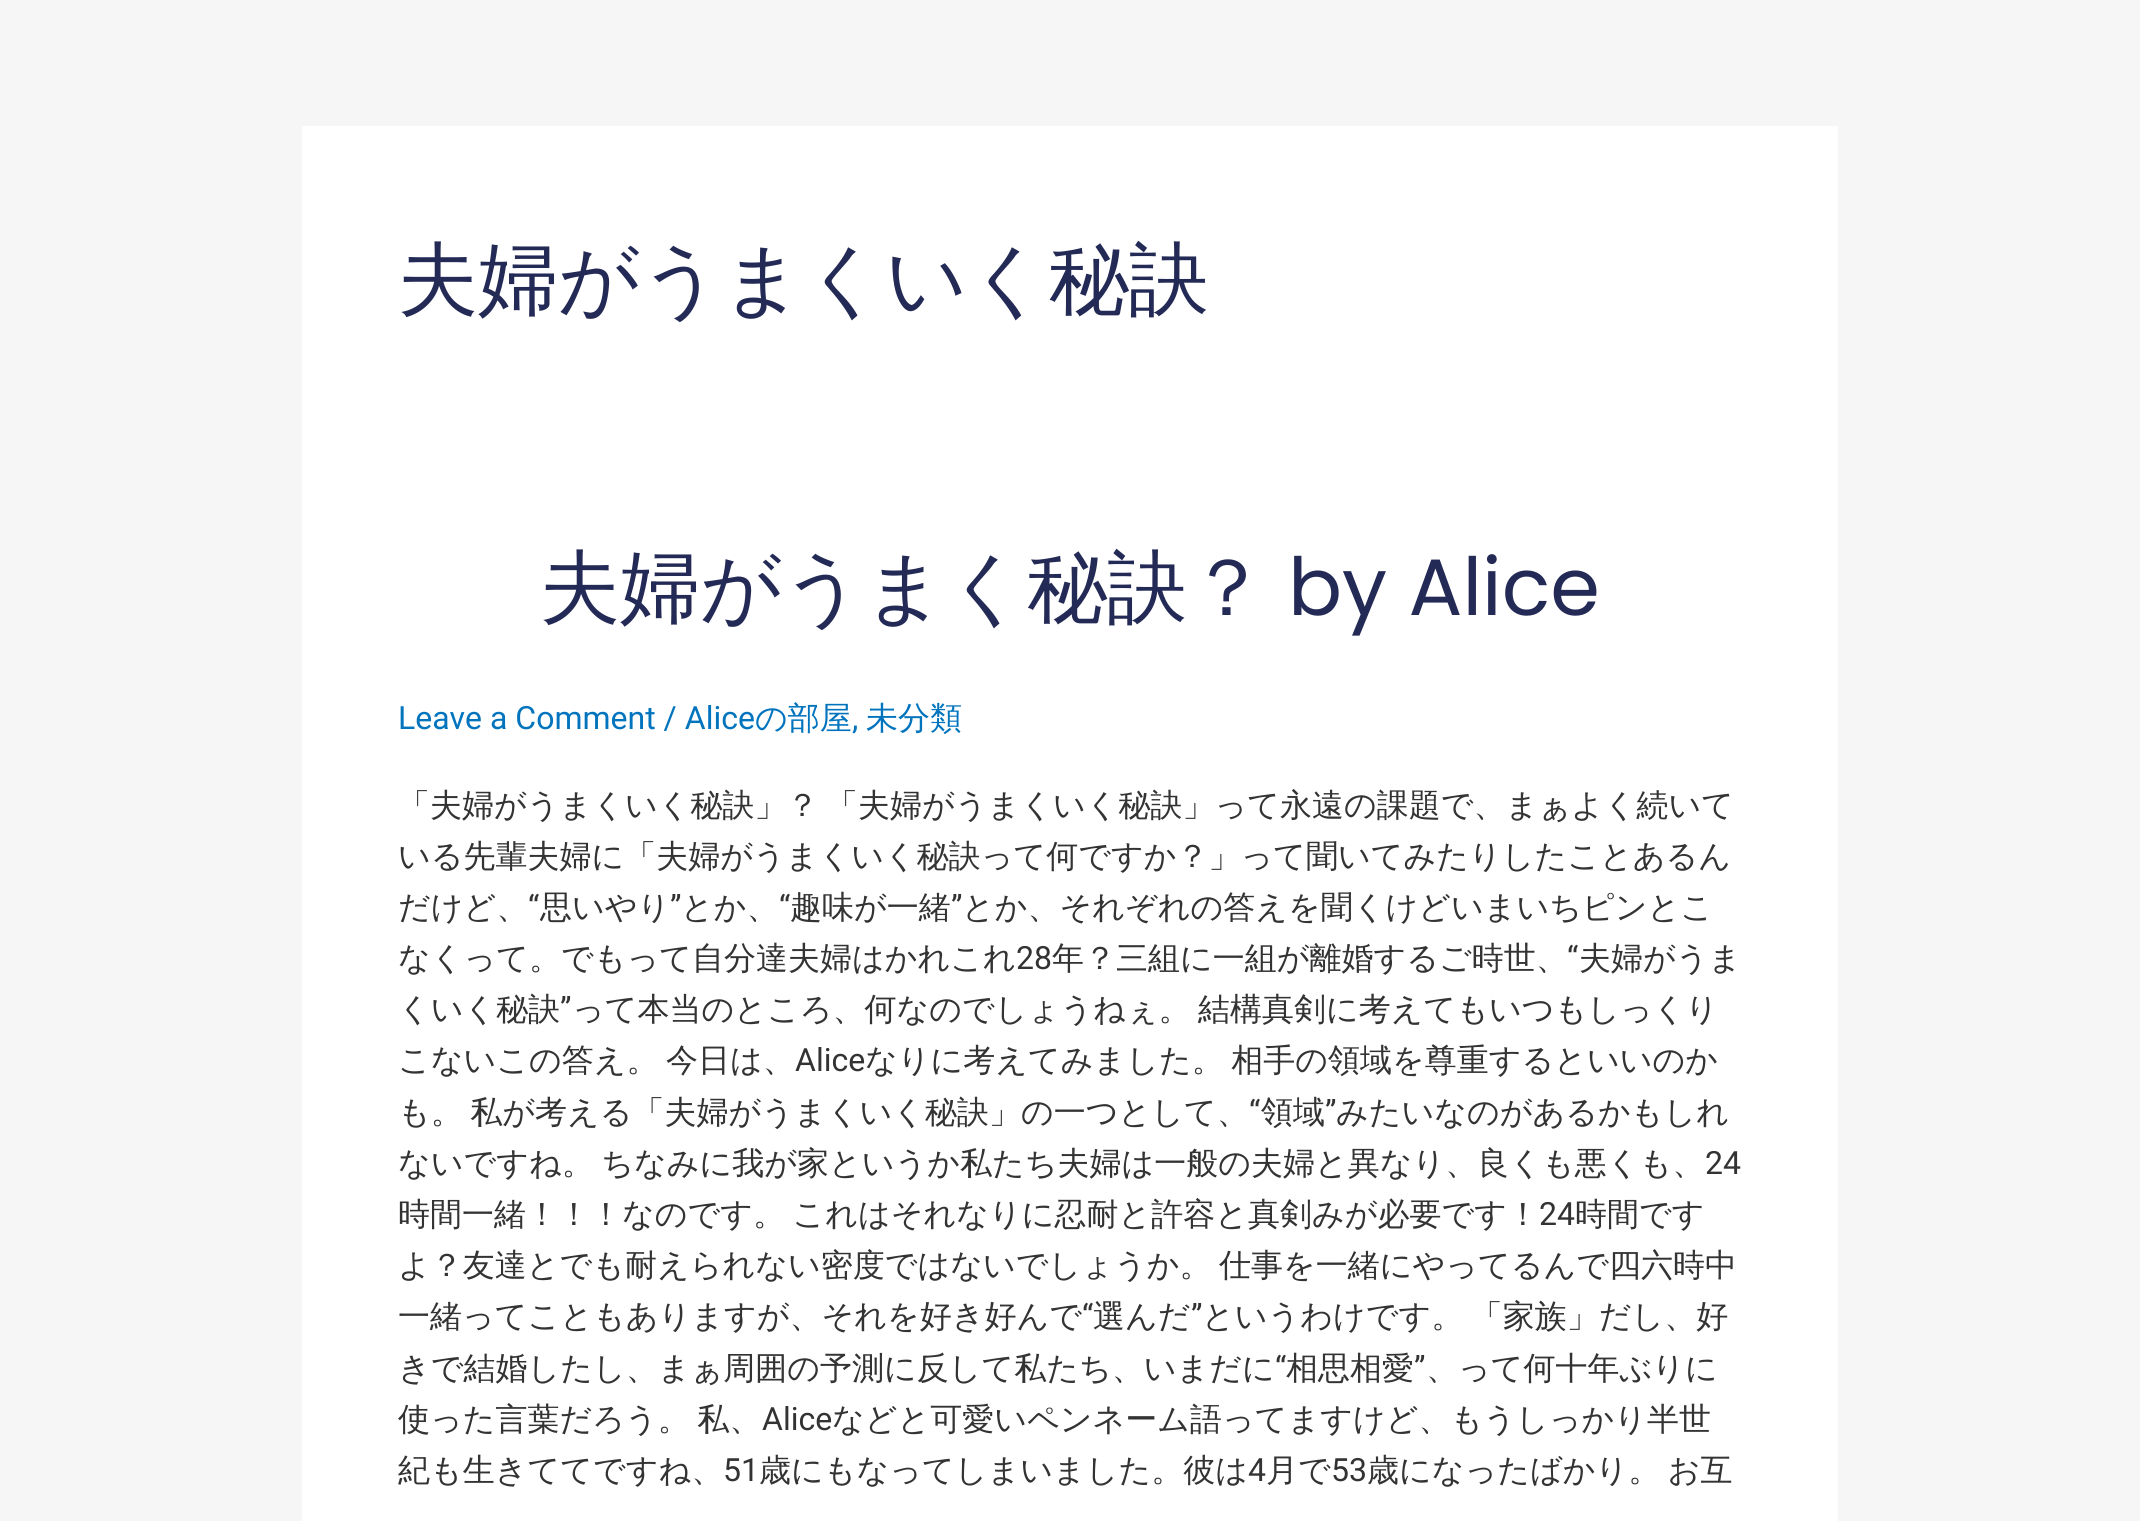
import math
import cairo

surface = cairo.ImageSurface(cairo.FORMAT_RGB24, 2140, 1521)
ctx = cairo.Context(surface)
options = cairo.FontOptions()
options.set_hint_metrics(cairo.HINT_METRICS_OFF)
options.set_hint_style(cairo.HINT_STYLE_NONE)
ctx.set_font_options(options)
ctx.set_miter_limit(4)


def spaced_text(x, y, s, letter, word):
    ctx.move_to(x, y)
    for ch in s:
        ctx.show_text(ch)
        ctx.rel_move_to(letter + word * (ch == ' '), 0)


ctx.set_source_rgb(0.961, 0.961, 0.961)
ctx.paint()
ctx.set_source_rgb(1, 1, 1)
ctx.rectangle(302, 126, 1536, 1395)
ctx.fill()
ctx.select_font_face("WenQuanYi Zen Hei Medium")
ctx.set_font_size(80)
ctx.set_source_rgb(0.141, 0.165, 0.337)
ctx.move_to(398, 307)
ctx.show_text("夫婦がうまくいく秘訣")
ctx.move_to(540, 615)
ctx.show_text("夫婦がうまく秘訣？")
ctx.select_font_face("Poppins")
ctx.move_to(1288, 615)
ctx.show_text("by Alice")
ctx.select_font_face("Roboto")
ctx.set_font_size(32)
ctx.set_source_rgb(0.008, 0.455, 0.745)
ctx.move_to(398, 729)
ctx.show_text("Leave a Comment / Alice")
ctx.select_font_face("WenQuanYi Zen Hei Medium")
ctx.move_to(755, 729)
ctx.show_text("の部屋")
ctx.select_font_face("Roboto")
ctx.move_to(852, 729)
ctx.show_text(",")
ctx.select_font_face("WenQuanYi Zen Hei Medium")
ctx.move_to(866, 729)
ctx.show_text("未分類")
ctx.set_source_rgb(0.2, 0.2, 0.2)
spaced_text(398, 816, "「夫婦がうまくいく秘訣」？ 「夫婦がうまくいく秘訣」って永遠の課題で、まぁよく続いて", 0, -2)
ctx.move_to(398, 867)
ctx.show_text("いる先輩夫婦に「夫婦がうまくいく秘訣って何ですか？」って聞いてみたりしたことあるん")
ctx.move_to(398, 918)
ctx.show_text("だけど、")
ctx.select_font_face("Roboto")
ctx.move_to(528, 918)
ctx.show_text("“")
ctx.select_font_face("WenQuanYi Zen Hei Medium")
ctx.move_to(540, 918)
ctx.show_text("思いやり")
ctx.select_font_face("Roboto")
ctx.move_to(670, 918)
ctx.show_text("”")
ctx.select_font_face("WenQuanYi Zen Hei Medium")
ctx.move_to(681, 918)
ctx.show_text("とか、")
ctx.select_font_face("Roboto")
ctx.move_to(779, 918)
ctx.show_text("“")
ctx.select_font_face("WenQuanYi Zen Hei Medium")
ctx.move_to(790, 918)
ctx.show_text("趣味が一緒")
ctx.select_font_face("Roboto")
ctx.move_to(951, 918)
ctx.show_text("”")
ctx.select_font_face("WenQuanYi Zen Hei Medium")
ctx.move_to(962, 918)
ctx.show_text("とか、それぞれの答えを聞くけどいまいちピンとこ")
ctx.move_to(398, 969)
ctx.show_text("なくって。でもって自分達夫婦はかれこれ")
ctx.select_font_face("Roboto")
ctx.move_to(1016, 969)
ctx.show_text("28")
ctx.select_font_face("WenQuanYi Zen Hei Medium")
ctx.move_to(1052, 969)
ctx.show_text("年？三組に一組が離婚するご時世、")
ctx.select_font_face("Roboto")
ctx.move_to(1567, 969)
ctx.show_text("“")
ctx.select_font_face("WenQuanYi Zen Hei Medium")
ctx.move_to(1579, 969)
ctx.show_text("夫婦がうま")
ctx.move_to(398, 1020)
ctx.show_text("くいく秘訣")
ctx.select_font_face("Roboto")
ctx.move_to(560, 1020)
ctx.show_text("”")
ctx.select_font_face("WenQuanYi Zen Hei Medium")
spaced_text(572, 1020, "って本当のところ、何なのでしょうねぇ。 結構真剣に考えてもいつもしっくり", 0, -2)
spaced_text(398, 1071, "こないこの答え。 今日は、", 0, -2)
ctx.select_font_face("Roboto")
ctx.move_to(795, 1071)
ctx.show_text("Alice")
ctx.select_font_face("WenQuanYi Zen Hei Medium")
spaced_text(865, 1071, "なりに考えてみました。 相手の領域を尊重するといいのか", 0, -2)
spaced_text(398, 1123, "も。 私が考える「夫婦がうまくいく秘訣」の一つとして、", 0, -2)
ctx.select_font_face("Roboto")
ctx.move_to(1249, 1123)
ctx.show_text("“")
ctx.select_font_face("WenQuanYi Zen Hei Medium")
ctx.move_to(1261, 1123)
ctx.show_text("領域")
ctx.select_font_face("Roboto")
ctx.move_to(1325, 1123)
ctx.show_text("”")
ctx.select_font_face("WenQuanYi Zen Hei Medium")
ctx.move_to(1336, 1123)
ctx.show_text("みたいなのがあるかもしれ")
spaced_text(398, 1174, "ないですね。 ちなみに我が家というか私たち夫婦は一般の夫婦と異なり、良くも悪くも、", 0, -2)
ctx.select_font_face("Roboto")
ctx.move_to(1705, 1174)
ctx.show_text("24")
ctx.select_font_face("WenQuanYi Zen Hei Medium")
spaced_text(398, 1225, "時間一緒！！！なのです。 これはそれなりに忍耐と許容と真剣みが必要です！", 0, -2)
ctx.select_font_face("Roboto")
ctx.move_to(1539, 1225)
ctx.show_text("24")
ctx.select_font_face("WenQuanYi Zen Hei Medium")
ctx.move_to(1575, 1225)
ctx.show_text("時間です")
spaced_text(398, 1276, "よ？友達とでも耐えられない密度ではないでしょうか。 仕事を一緒にやってるんで四六時中", 0, -2)
ctx.move_to(398, 1327)
ctx.show_text("一緒ってこともありますが、それを好き好んで")
ctx.select_font_face("Roboto")
ctx.move_to(1082, 1327)
ctx.show_text("“")
ctx.select_font_face("WenQuanYi Zen Hei Medium")
ctx.move_to(1093, 1327)
ctx.show_text("選んだ")
ctx.select_font_face("Roboto")
ctx.move_to(1191, 1327)
ctx.show_text("”")
ctx.select_font_face("WenQuanYi Zen Hei Medium")
spaced_text(1202, 1327, "というわけです。 「家族」だし、好", 0, -2)
ctx.move_to(398, 1379)
ctx.show_text("きで結婚したし、まぁ周囲の予測に反して私たち、いまだに")
ctx.select_font_face("Roboto")
ctx.move_to(1275, 1379)
ctx.show_text("“")
ctx.select_font_face("WenQuanYi Zen Hei Medium")
ctx.move_to(1286, 1379)
ctx.show_text("相思相愛")
ctx.select_font_face("Roboto")
ctx.move_to(1414, 1379)
ctx.show_text("”")
ctx.select_font_face("WenQuanYi Zen Hei Medium")
ctx.move_to(1426, 1379)
ctx.show_text("、って何十年ぶりに")
spaced_text(398, 1430, "使った言葉だろう。 私、", 0, -2)
ctx.select_font_face("Roboto")
ctx.move_to(762, 1430)
ctx.show_text("Alice")
ctx.select_font_face("WenQuanYi Zen Hei Medium")
ctx.move_to(832, 1430)
ctx.show_text("などと可愛いペンネーム語ってますけど、もうしっかり半世")
ctx.move_to(398, 1481)
ctx.show_text("紀も生きててですね、")
ctx.select_font_face("Roboto")
ctx.move_to(723, 1481)
ctx.show_text("51")
ctx.select_font_face("WenQuanYi Zen Hei Medium")
ctx.move_to(759, 1481)
ctx.show_text("歳にもなってしまいました。彼は")
ctx.select_font_face("Roboto")
ctx.move_to(1248, 1481)
ctx.show_text("4")
ctx.select_font_face("WenQuanYi Zen Hei Medium")
ctx.move_to(1266, 1481)
ctx.show_text("月で")
ctx.select_font_face("Roboto")
ctx.move_to(1331, 1481)
ctx.show_text("53")
ctx.select_font_face("WenQuanYi Zen Hei Medium")
spaced_text(1367, 1481, "歳になったばかり。 お互", 0, -2)
surface.write_to_png("page.png")
